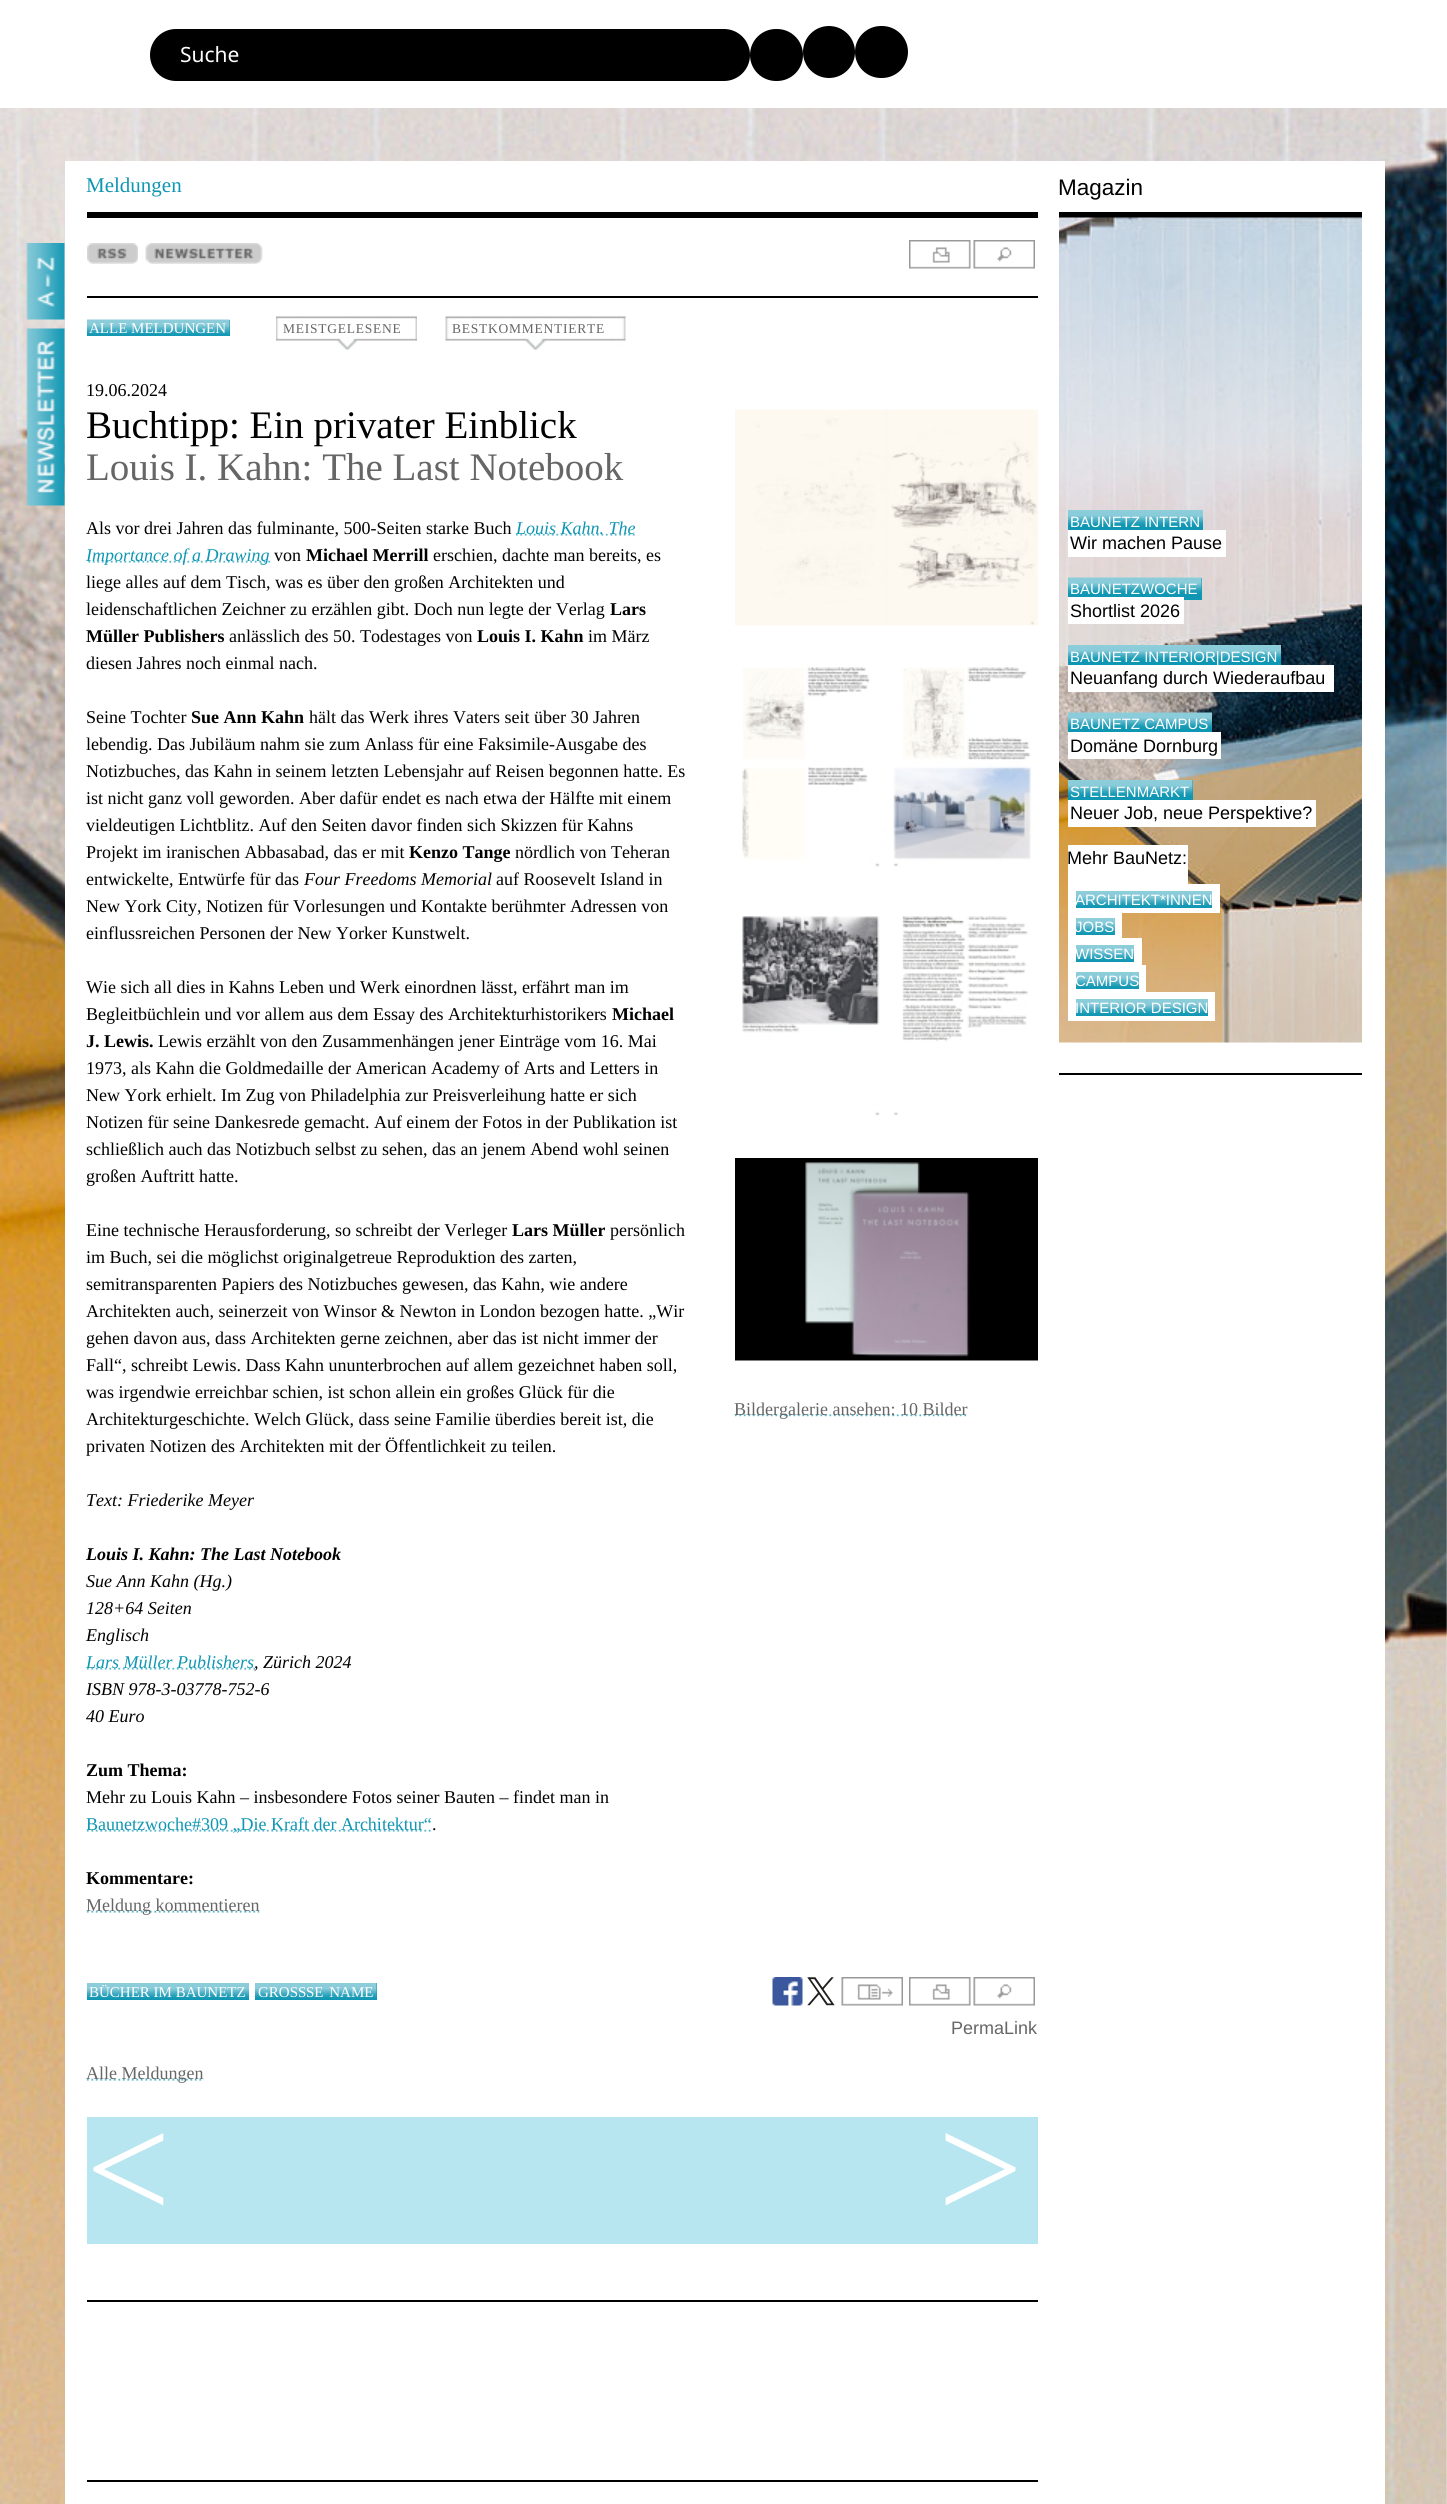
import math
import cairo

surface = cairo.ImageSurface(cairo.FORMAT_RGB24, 1447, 2504)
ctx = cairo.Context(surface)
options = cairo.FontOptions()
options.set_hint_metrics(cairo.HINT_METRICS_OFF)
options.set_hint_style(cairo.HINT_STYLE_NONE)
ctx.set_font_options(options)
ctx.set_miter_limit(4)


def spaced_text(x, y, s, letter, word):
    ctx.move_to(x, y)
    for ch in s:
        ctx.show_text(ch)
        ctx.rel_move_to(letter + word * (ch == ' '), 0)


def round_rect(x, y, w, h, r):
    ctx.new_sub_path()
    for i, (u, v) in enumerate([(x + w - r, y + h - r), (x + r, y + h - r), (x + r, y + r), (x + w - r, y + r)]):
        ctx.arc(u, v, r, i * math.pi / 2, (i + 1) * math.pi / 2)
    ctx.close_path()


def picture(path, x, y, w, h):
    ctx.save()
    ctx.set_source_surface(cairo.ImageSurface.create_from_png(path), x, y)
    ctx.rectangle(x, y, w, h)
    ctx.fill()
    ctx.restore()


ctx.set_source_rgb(1, 1, 1)
ctx.paint()
picture("img1.png", 0, 108, 1447, 2396)
ctx.set_source_rgb(0, 0, 0)
round_rect(150, 29, 600, 52, 26)
ctx.fill()
ctx.select_font_face("Noto Sans")
ctx.set_font_size(21)
ctx.set_source_rgb(1, 1, 1)
ctx.move_to(180, 62)
ctx.show_text("Suche")
ctx.set_source_rgb(0, 0, 0)
round_rect(750, 29, 53, 52, 26)
ctx.fill()
ctx.arc(829, 52, 26, 0, 2 * math.pi)
ctx.fill()
round_rect(855, 26, 53, 52, 26)
ctx.fill()
ctx.set_source_rgb(1, 1, 1)
ctx.rectangle(65, 161, 1320, 2343)
ctx.fill()
ctx.select_font_face("Liberation Serif")
ctx.set_source_rgb(0.059, 0.588, 0.702)
ctx.move_to(86, 192)
ctx.show_text("Meldungen")
ctx.select_font_face("Liberation Sans")
ctx.set_font_size(22.5)
ctx.set_source_rgb(0, 0, 0)
ctx.move_to(1058, 195)
ctx.show_text("Magazin")
ctx.rectangle(87, 212, 951, 6)
ctx.fill()
ctx.rectangle(1059, 212, 303, 6)
ctx.fill()
picture("img2.png", 26, 243, 39, 77)
picture("img3.png", 26, 328, 39, 178)
ctx.rectangle(87, 296, 951, 2)
ctx.fill()
picture("img4.png", 87, 243, 51, 21)
picture("img5.png", 145, 243, 118, 21)
picture("img6.png", 909, 240, 62, 29)
picture("img7.png", 973, 240, 62, 29)
ctx.set_source_rgb(0.059, 0.588, 0.702)
ctx.rectangle(229, 320, 1, 16)
ctx.fill()
picture("img8.png", 87, 319, 143, 17)
ctx.select_font_face("Liberation Serif")
ctx.set_font_size(15)
ctx.set_source_rgb(1, 1, 1)
ctx.move_to(89, 333)
ctx.show_text("ALLE MELDUNGEN")
picture("img9.png", 276, 316, 141, 34)
ctx.set_font_size(13.5)
ctx.set_source_rgb(0.4, 0.4, 0.4)
spaced_text(283, 333, "MEISTGELESENE", 0.75, 0)
picture("img10.png", 445, 316, 181, 34)
spaced_text(452, 333, "BESTKOMMENTIERTE", 0.75, 0)
ctx.set_font_size(18)
ctx.set_source_rgb(0, 0, 0)
ctx.move_to(86, 396)
ctx.show_text("19.06.2024")
ctx.set_font_size(39)
ctx.move_to(86, 438)
ctx.show_text("Buchtipp: Ein privater Einblick")
ctx.set_source_rgb(0.4, 0.4, 0.4)
ctx.move_to(86, 480)
ctx.show_text("Louis I. Kahn: The Last Notebook")
ctx.set_font_size(18)
ctx.set_source_rgb(0, 0, 0)
ctx.move_to(86, 534)
ctx.show_text("Als vor drei Jahren das fulminante, 500-Seiten starke Buch")
picture("img11.png", 88, 533, 547, 30)
ctx.select_font_face("Liberation Serif", cairo.FONT_SLANT_ITALIC)
ctx.set_source_rgb(0.059, 0.588, 0.702)
ctx.move_to(516, 534)
ctx.show_text("Louis Kahn. The")
ctx.move_to(86, 561)
ctx.show_text("Importance of a Drawing")
ctx.select_font_face("Liberation Serif")
ctx.set_source_rgb(0, 0, 0)
ctx.move_to(274, 561)
ctx.show_text("von")
ctx.select_font_face("Liberation Serif", cairo.FONT_SLANT_NORMAL, cairo.FONT_WEIGHT_BOLD)
ctx.move_to(306, 561)
ctx.show_text("Michael Merrill")
ctx.select_font_face("Liberation Serif")
ctx.move_to(433, 561)
ctx.show_text("erschien, dachte man bereits, es")
ctx.move_to(86, 588)
ctx.show_text("liege alles auf dem Tisch, was es über den großen Architekten und")
ctx.move_to(86, 615)
ctx.show_text("leidenschaftlichen Zeichner zu erzählen gibt. Doch nun legte der Verlag")
ctx.select_font_face("Liberation Serif", cairo.FONT_SLANT_NORMAL, cairo.FONT_WEIGHT_BOLD)
ctx.move_to(610, 615)
ctx.show_text("Lars")
ctx.move_to(86, 642)
ctx.show_text("Müller Publishers")
ctx.select_font_face("Liberation Serif")
ctx.move_to(229, 642)
ctx.show_text("anlässlich des 50. Todestages von")
ctx.select_font_face("Liberation Serif", cairo.FONT_SLANT_NORMAL, cairo.FONT_WEIGHT_BOLD)
ctx.move_to(477, 642)
ctx.show_text("Louis I. Kahn")
ctx.select_font_face("Liberation Serif")
ctx.move_to(588, 642)
ctx.show_text("im März")
ctx.move_to(86, 669)
ctx.show_text("diesen Jahres noch einmal nach.")
ctx.move_to(86, 723)
ctx.show_text("Seine Tochter")
ctx.select_font_face("Liberation Serif", cairo.FONT_SLANT_NORMAL, cairo.FONT_WEIGHT_BOLD)
ctx.move_to(191, 723)
ctx.show_text("Sue Ann Kahn")
ctx.select_font_face("Liberation Serif")
ctx.move_to(309, 723)
ctx.show_text("hält das Werk ihres Vaters seit über 30 Jahren")
ctx.move_to(86, 750)
ctx.show_text("lebendig. Das Jubiläum nahm sie zum Anlass für eine Faksimile-Ausgabe des")
ctx.move_to(86, 777)
ctx.show_text("Notizbuches, das Kahn in seinem letzten Lebensjahr auf Reisen begonnen hatte. Es")
ctx.move_to(86, 804)
ctx.show_text("ist nicht ganz voll geworden. Aber dafür endet es nach etwa der Hälfte mit einem")
ctx.move_to(86, 831)
ctx.show_text("vieldeutigen Lichtblitz. Auf den Seiten davor finden sich Skizzen für Kahns")
ctx.move_to(86, 858)
ctx.show_text("Projekt im iranischen Abbasabad, das er mit")
ctx.select_font_face("Liberation Serif", cairo.FONT_SLANT_NORMAL, cairo.FONT_WEIGHT_BOLD)
ctx.move_to(409, 858)
ctx.show_text("Kenzo Tange")
ctx.select_font_face("Liberation Serif")
ctx.move_to(515, 858)
ctx.show_text("nördlich von Teheran")
ctx.move_to(86, 885)
ctx.show_text("entwickelte, Entwürfe für das")
ctx.select_font_face("Liberation Serif", cairo.FONT_SLANT_ITALIC)
ctx.move_to(304, 885)
ctx.show_text("Four Freedoms Memorial")
ctx.select_font_face("Liberation Serif")
ctx.move_to(496, 885)
ctx.show_text("auf Roosevelt Island in")
ctx.move_to(86, 912)
ctx.show_text("New York City, Notizen für Vorlesungen und Kontakte berühmter Adressen von")
ctx.move_to(86, 939)
ctx.show_text("einflussreichen Personen der New Yorker Kunstwelt.")
ctx.move_to(86, 993)
ctx.show_text("Wie sich all dies in Kahns Leben und Werk einordnen lässt, erfährt man im")
ctx.move_to(86, 1020)
ctx.show_text("Begleitbüchlein und vor allem aus dem Essay des Architekturhistorikers")
ctx.select_font_face("Liberation Serif", cairo.FONT_SLANT_NORMAL, cairo.FONT_WEIGHT_BOLD)
ctx.move_to(612, 1020)
ctx.show_text("Michael")
ctx.move_to(86, 1047)
ctx.show_text("J. Lewis.")
ctx.select_font_face("Liberation Serif")
ctx.move_to(158, 1047)
ctx.show_text("Lewis erzählt von den Zusammenhängen jener Einträge vom 16. Mai")
ctx.move_to(86, 1074)
ctx.show_text("1973, als Kahn die Goldmedaille der American Academy of Arts and Letters in")
ctx.move_to(86, 1101)
ctx.show_text("New York erhielt. Im Zug von Philadelphia zur Preisverleihung hatte er sich")
ctx.move_to(86, 1128)
ctx.show_text("Notizen für seine Dankesrede gemacht. Auf einem der Fotos in der Publikation ist")
ctx.move_to(86, 1155)
ctx.show_text("schließlich auch das Notizbuch selbst zu sehen, das an jenem Abend wohl seinen")
ctx.move_to(86, 1182)
ctx.show_text("großen Auftritt hatte.")
ctx.move_to(86, 1236)
ctx.show_text("Eine technische Herausforderung, so schreibt der Verleger")
ctx.select_font_face("Liberation Serif", cairo.FONT_SLANT_NORMAL, cairo.FONT_WEIGHT_BOLD)
ctx.move_to(512, 1236)
ctx.show_text("Lars Müller")
ctx.select_font_face("Liberation Serif")
ctx.move_to(610, 1236)
ctx.show_text("persönlich")
ctx.move_to(86, 1263)
ctx.show_text("im Buch, sei die möglichst originalgetreue Reproduktion des zarten,")
ctx.move_to(86, 1290)
ctx.show_text("semitransparenten Papiers des Notizbuches gewesen, das Kahn, wie andere")
ctx.move_to(86, 1317)
ctx.show_text("Architekten auch, seinerzeit von Winsor & Newton in London bezogen hatte. „Wir")
ctx.move_to(86, 1344)
ctx.show_text("gehen davon aus, dass Architekten gerne zeichnen, aber das ist nicht immer der")
ctx.move_to(86, 1371)
ctx.show_text("Fall“, schreibt Lewis. Dass Kahn ununterbrochen auf allem gezeichnet haben soll,")
ctx.move_to(86, 1398)
ctx.show_text("was irgendwie erreichbar schien, ist schon allein ein großes Glück für die")
ctx.move_to(86, 1425)
ctx.show_text("Architekturgeschichte. Welch Glück, dass seine Familie überdies bereit ist, die")
ctx.move_to(86, 1452)
ctx.show_text("privaten Notizen des Architekten mit der Öffentlichkeit zu teilen.")
ctx.select_font_face("Liberation Serif", cairo.FONT_SLANT_ITALIC)
ctx.move_to(86, 1506)
ctx.show_text("Text: Friederike Meyer")
ctx.select_font_face("Liberation Serif", cairo.FONT_SLANT_ITALIC, cairo.FONT_WEIGHT_BOLD)
ctx.move_to(86, 1560)
ctx.show_text("Louis I. Kahn: The Last Notebook")
ctx.select_font_face("Liberation Serif", cairo.FONT_SLANT_ITALIC)
ctx.move_to(86, 1587)
ctx.show_text("Sue Ann Kahn (Hg.)")
ctx.move_to(86, 1614)
ctx.show_text("128+64 Seiten")
ctx.move_to(86, 1641)
ctx.show_text("Englisch")
picture("img12.png", 87, 1667, 168, 3)
ctx.set_source_rgb(0.059, 0.588, 0.702)
ctx.move_to(86, 1668)
ctx.show_text("Lars Müller Publishers")
ctx.set_source_rgb(0, 0, 0)
ctx.move_to(254, 1668)
ctx.show_text(", Zürich 2024")
ctx.move_to(86, 1695)
ctx.show_text("ISBN 978-3-03778-752-6")
ctx.move_to(86, 1722)
ctx.show_text("40 Euro")
ctx.select_font_face("Liberation Serif", cairo.FONT_SLANT_NORMAL, cairo.FONT_WEIGHT_BOLD)
ctx.move_to(86, 1776)
ctx.show_text("Zum Thema:")
ctx.select_font_face("Liberation Serif")
ctx.move_to(86, 1803)
ctx.show_text("Mehr zu Louis Kahn – insbesondere Fotos seiner Bauten – findet man in")
picture("img13.png", 87, 1829, 344, 3)
ctx.set_source_rgb(0.059, 0.588, 0.702)
ctx.move_to(86, 1830)
ctx.show_text("Baunetzwoche#309 „Die Kraft der Architektur“")
ctx.set_source_rgb(0, 0, 0)
ctx.move_to(432, 1830)
ctx.show_text(".")
ctx.select_font_face("Liberation Serif", cairo.FONT_SLANT_NORMAL, cairo.FONT_WEIGHT_BOLD)
ctx.move_to(86, 1884)
ctx.show_text("Kommentare:")
picture("img14.png", 87, 1910, 173, 3)
ctx.select_font_face("Liberation Serif")
ctx.set_source_rgb(0.4, 0.4, 0.4)
ctx.move_to(86, 1911)
ctx.show_text("Meldung kommentieren")
picture("img15.png", 735, 409, 303, 217)
picture("img16.png", 742, 667, 290, 200)
picture("img17.png", 742, 916, 286, 200)
picture("img18.png", 735, 1158, 303, 203)
picture("img19.png", 735, 1414, 232, 3)
ctx.move_to(734, 1415)
ctx.show_text("Bildergalerie ansehen: 10 Bilder")
picture("img20.png", 87, 1983, 162, 16)
ctx.set_source_rgb(0.059, 0.588, 0.702)
ctx.rectangle(255, 1983, 122, 17)
ctx.fill()
picture("img21.png", 255, 1983, 122, 16)
ctx.set_font_size(15)
ctx.set_source_rgb(1, 1, 1)
ctx.move_to(89, 1997)
ctx.show_text("BÜCHER IM BAUNETZ")
ctx.set_source_rgb(0.059, 0.588, 0.702)
ctx.rectangle(87, 1999, 162, 1)
ctx.fill()
ctx.set_source_rgb(1, 1, 1)
ctx.move_to(258, 1997)
ctx.show_text("GROSS")
spaced_text(306, 1997, "SE NAME", 0, 2)
picture("img22.png", 772, 1977, 31, 29)
picture("img23.png", 807, 1977, 28, 29)
picture("img24.png", 841, 1977, 62, 29)
picture("img6.png", 909, 1977, 62, 29)
picture("img7.png", 973, 1977, 62, 29)
ctx.select_font_face("Liberation Sans")
ctx.set_font_size(18)
ctx.set_source_rgb(0.4, 0.4, 0.4)
ctx.move_to(951, 2034)
ctx.show_text("PermaLink")
picture("img25.png", 87, 2078, 117, 3)
ctx.select_font_face("Liberation Serif")
ctx.move_to(86, 2079)
ctx.show_text("Alle Meldungen")
ctx.set_source_rgb(0.718, 0.902, 0.941)
ctx.rectangle(87, 2117, 951, 127)
ctx.fill()
ctx.set_font_size(150)
ctx.set_source_rgb(1, 1, 1)
ctx.move_to(86, 2219)
ctx.show_text("<")
ctx.move_to(938, 2219)
ctx.show_text(">")
ctx.set_source_rgb(0, 0, 0)
ctx.rectangle(87, 2300, 951, 2)
ctx.fill()
ctx.rectangle(87, 2480, 951, 2)
ctx.fill()
picture("img26.png", 1059, 217, 303, 826)
picture("img27.png", 1068, 510, 135, 16)
ctx.set_source_rgb(0.059, 0.588, 0.702)
ctx.rectangle(1068, 526, 135, 4)
ctx.fill()
ctx.select_font_face("Liberation Sans")
ctx.set_font_size(15)
ctx.set_source_rgb(1, 1, 1)
ctx.move_to(1070, 527)
ctx.show_text("BAUNETZ INTERN")
ctx.rectangle(1068, 530, 158, 27)
ctx.fill()
ctx.set_font_size(18)
ctx.set_source_rgb(0, 0, 0)
ctx.move_to(1070, 549)
ctx.show_text("Wir machen Pause")
ctx.set_source_rgb(0.059, 0.588, 0.702)
ctx.rectangle(1068, 578, 134, 22)
ctx.fill()
picture("img28.png", 1068, 577, 134, 17)
ctx.set_font_size(15)
ctx.set_source_rgb(1, 1, 1)
ctx.move_to(1070, 594)
ctx.show_text("BAUNETZWOCHE")
ctx.rectangle(1068, 597, 116, 27)
ctx.fill()
ctx.set_font_size(18)
ctx.set_source_rgb(0, 0, 0)
ctx.move_to(1070, 617)
ctx.show_text("Shortlist 2026")
picture("img29.png", 1068, 645, 213, 16)
ctx.set_source_rgb(0.059, 0.588, 0.702)
ctx.rectangle(1068, 661, 213, 4)
ctx.fill()
ctx.set_font_size(15)
ctx.set_source_rgb(1, 1, 1)
ctx.move_to(1070, 662)
ctx.show_text("BAUNETZ INTERIOR|DESIGN")
ctx.rectangle(1068, 665, 266, 27)
ctx.fill()
ctx.set_font_size(18)
ctx.set_source_rgb(0, 0, 0)
ctx.move_to(1070, 684)
ctx.show_text("Neuanfang durch Wiederaufbau")
picture("img30.png", 1068, 712, 144, 17)
ctx.set_source_rgb(0.059, 0.588, 0.702)
ctx.rectangle(1068, 729, 144, 3)
ctx.fill()
ctx.set_font_size(15)
ctx.set_source_rgb(1, 1, 1)
ctx.move_to(1070, 729)
ctx.show_text("BAUNETZ CAMPUS")
ctx.rectangle(1068, 732, 153, 27)
ctx.fill()
ctx.set_font_size(18)
ctx.set_source_rgb(0, 0, 0)
ctx.move_to(1070, 752)
ctx.show_text("Domäne Dornburg")
ctx.set_source_rgb(0.059, 0.588, 0.702)
ctx.rectangle(1068, 780, 125, 20)
ctx.fill()
picture("img31.png", 1068, 780, 125, 16)
ctx.set_font_size(15)
ctx.set_source_rgb(1, 1, 1)
ctx.move_to(1070, 797)
ctx.show_text("STELLENMARKT")
ctx.rectangle(1068, 800, 248, 27)
ctx.fill()
ctx.set_font_size(18)
ctx.set_source_rgb(0, 0, 0)
ctx.move_to(1070, 819)
ctx.show_text("Neuer Job, neue Perspektive?")
ctx.set_source_rgb(1, 1, 1)
ctx.rectangle(1068, 845, 120, 39)
ctx.fill()
ctx.set_source_rgb(0, 0, 0)
ctx.move_to(1067, 864)
ctx.show_text("Mehr BauNetz:")
ctx.set_source_rgb(0.059, 0.588, 0.702)
ctx.rectangle(1076, 907, 136, 1)
ctx.fill()
picture("img32.png", 1076, 891, 136, 17)
ctx.set_source_rgb(1, 1, 1)
ctx.rectangle(1068, 884, 152, 7)
ctx.fill()
ctx.rectangle(1212, 884, 8, 28)
ctx.fill()
ctx.rectangle(1068, 908, 152, 5)
ctx.fill()
ctx.rectangle(1068, 884, 8, 28)
ctx.fill()
ctx.set_font_size(15)
ctx.move_to(1075, 905)
ctx.show_text("ARCHITEKT*INNEN")
ctx.set_source_rgb(0.059, 0.588, 0.702)
ctx.rectangle(1076, 934, 39, 1)
ctx.fill()
picture("img33.png", 1076, 918, 39, 17)
ctx.set_source_rgb(1, 1, 1)
ctx.rectangle(1068, 913, 54, 5)
ctx.fill()
ctx.rectangle(1115, 911, 7, 28)
ctx.fill()
ctx.rectangle(1068, 935, 54, 3)
ctx.fill()
ctx.rectangle(1068, 911, 8, 28)
ctx.fill()
ctx.move_to(1075, 932)
ctx.show_text("JOBS")
ctx.set_source_rgb(0.059, 0.588, 0.702)
ctx.rectangle(1076, 961, 58, 1)
ctx.fill()
picture("img34.png", 1076, 945, 58, 17)
ctx.set_source_rgb(1, 1, 1)
ctx.rectangle(1068, 938, 74, 7)
ctx.fill()
ctx.rectangle(1134, 938, 8, 28)
ctx.fill()
ctx.rectangle(1068, 962, 74, 3)
ctx.fill()
ctx.rectangle(1068, 938, 8, 28)
ctx.fill()
ctx.move_to(1075, 959)
ctx.show_text("WISSEN")
ctx.set_source_rgb(0.059, 0.588, 0.702)
ctx.rectangle(1076, 988, 63, 1)
ctx.fill()
picture("img35.png", 1076, 972, 63, 17)
ctx.set_source_rgb(1, 1, 1)
ctx.rectangle(1068, 965, 78, 7)
ctx.fill()
ctx.rectangle(1139, 965, 7, 28)
ctx.fill()
ctx.rectangle(1068, 989, 78, 3)
ctx.fill()
ctx.rectangle(1068, 965, 8, 28)
ctx.fill()
ctx.move_to(1075, 986)
ctx.show_text("CAMPUS")
ctx.set_source_rgb(0.059, 0.588, 0.702)
ctx.rectangle(1076, 1015, 132, 1)
ctx.fill()
picture("img36.png", 1076, 999, 132, 17)
ctx.set_source_rgb(1, 1, 1)
ctx.rectangle(1068, 992, 147, 7)
ctx.fill()
ctx.rectangle(1208, 992, 7, 28)
ctx.fill()
ctx.rectangle(1068, 1016, 147, 5)
ctx.fill()
ctx.rectangle(1068, 992, 8, 28)
ctx.fill()
ctx.move_to(1075, 1013)
ctx.show_text("INTERIOR DESIGN")
ctx.set_source_rgb(0, 0, 0)
ctx.rectangle(1059, 1073, 303, 2)
ctx.fill()
surface.write_to_png("page.png")
